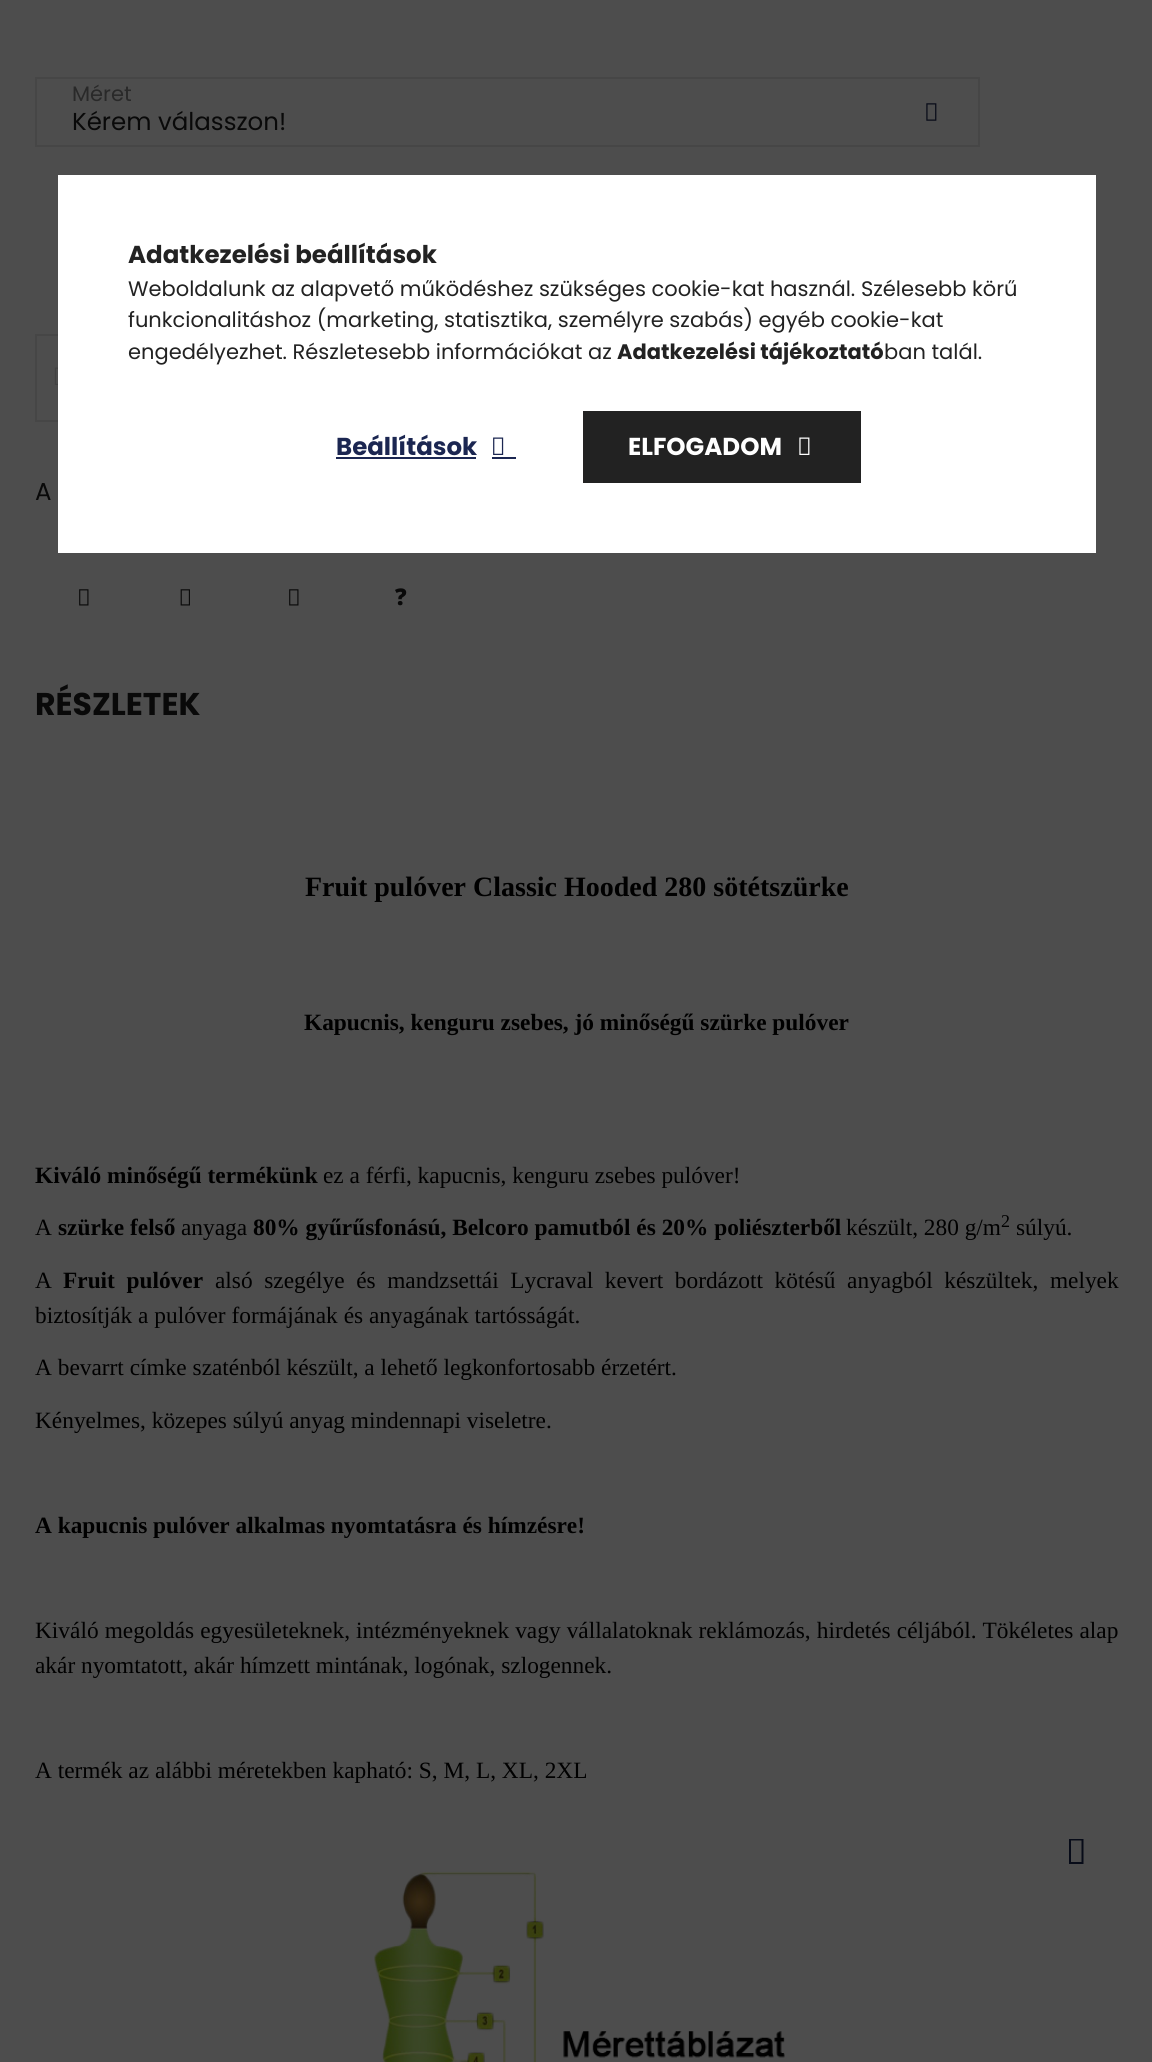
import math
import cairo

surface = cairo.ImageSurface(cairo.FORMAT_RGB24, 1152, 2062)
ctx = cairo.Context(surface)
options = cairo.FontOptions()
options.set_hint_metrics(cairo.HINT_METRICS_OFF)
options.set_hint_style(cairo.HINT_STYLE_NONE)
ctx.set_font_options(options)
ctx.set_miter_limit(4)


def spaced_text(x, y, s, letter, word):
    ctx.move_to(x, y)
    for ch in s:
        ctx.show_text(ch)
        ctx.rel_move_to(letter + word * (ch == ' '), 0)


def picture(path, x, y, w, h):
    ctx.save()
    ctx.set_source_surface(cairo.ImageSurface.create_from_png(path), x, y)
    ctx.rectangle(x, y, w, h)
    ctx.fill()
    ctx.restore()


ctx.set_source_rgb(0.302, 0.302, 0.302)
ctx.paint()
ctx.rectangle(36, 78, 943, 68)
ctx.set_source_rgb(0.275, 0.275, 0.275)
ctx.stroke()
ctx.select_font_face("Poppins")
ctx.set_font_size(21)
ctx.set_source_rgb(0.161, 0.161, 0.161)
ctx.move_to(72, 101)
ctx.show_text("Méret")
ctx.set_font_size(24.5)
ctx.set_source_rgb(0.039, 0.039, 0.039)
ctx.move_to(72, 130)
ctx.show_text("Kérem válasszon!")
picture("img1.png", 926, 103, 11, 18)
ctx.rectangle(36, 335, 150, 86)
ctx.set_source_rgb(0.275, 0.275, 0.275)
ctx.stroke()
picture("img2.png", 54, 367, 4, 18)
ctx.set_source_rgb(0.039, 0.039, 0.039)
ctx.move_to(35, 500)
ctx.show_text("A")
picture("img3.png", 79, 589, 10, 17)
picture("img4.png", 180, 589, 10, 17)
picture("img3.png", 289, 589, 10, 17)
ctx.select_font_face("Noto Sans Black")
ctx.set_font_size(23)
ctx.move_to(395, 605)
ctx.show_text("?")
ctx.select_font_face("Poppins", cairo.FONT_SLANT_NORMAL, cairo.FONT_WEIGHT_BOLD)
ctx.set_font_size(31.5)
ctx.move_to(35, 715)
ctx.show_text("RÉSZLETEK")
ctx.select_font_face("Liberation Serif", cairo.FONT_SLANT_NORMAL, cairo.FONT_WEIGHT_BOLD)
ctx.set_font_size(28)
ctx.set_source_rgb(0, 0, 0)
ctx.move_to(305, 896)
ctx.show_text("Fruit pulóver Classic Hooded 280 sötétszürke")
ctx.set_font_size(23.35)
ctx.move_to(304, 1030)
ctx.show_text("Kapucnis, kenguru zsebes, jó minőségű szürke pulóver")
ctx.move_to(35, 1183)
ctx.show_text("Kiváló minőségű termékünk")
ctx.select_font_face("Liberation Serif")
ctx.move_to(323, 1183)
ctx.show_text("ez a férfi, kapucnis, kenguru zsebes pulóver!")
ctx.move_to(35, 1235)
ctx.show_text("A")
ctx.select_font_face("Liberation Serif", cairo.FONT_SLANT_NORMAL, cairo.FONT_WEIGHT_BOLD)
ctx.move_to(58, 1235)
ctx.show_text("szürke felső")
ctx.select_font_face("Liberation Serif")
ctx.move_to(181, 1235)
ctx.show_text("anyaga")
ctx.select_font_face("Liberation Serif", cairo.FONT_SLANT_NORMAL, cairo.FONT_WEIGHT_BOLD)
ctx.move_to(253, 1235)
ctx.show_text("80% gyűrűsfonású, Belcoro pamutból és 20% poliészterből")
ctx.select_font_face("Liberation Serif")
ctx.move_to(846, 1235)
ctx.show_text("készült, 280 g/m")
ctx.set_font_size(18)
ctx.move_to(1001, 1227)
ctx.show_text("2")
ctx.set_font_size(23.35)
ctx.move_to(1016, 1235)
ctx.show_text("súlyú.")
ctx.move_to(35, 1288)
ctx.show_text("A")
ctx.select_font_face("Liberation Serif", cairo.FONT_SLANT_NORMAL, cairo.FONT_WEIGHT_BOLD)
spaced_text(63, 1288, "Fruit pulóver", 0, 5.75)
ctx.select_font_face("Liberation Serif")
spaced_text(215, 1288, "alsó szegélye és mandzsettái Lycraval kevert bordázott kötésű anyagból készültek, melyek", 0, 5.75)
ctx.move_to(35, 1323)
ctx.show_text("biztosítják a pulóver formájának és anyagának tartósságát.")
ctx.move_to(35, 1375)
ctx.show_text("A bevarrt címke szaténból készült, a lehető legkonfortosabb érzetért.")
ctx.move_to(35, 1428)
ctx.show_text("Kényelmes, közepes súlyú anyag mindennapi viseletre.")
ctx.select_font_face("Liberation Serif", cairo.FONT_SLANT_NORMAL, cairo.FONT_WEIGHT_BOLD)
ctx.move_to(35, 1533)
ctx.show_text("A kapucnis pulóver alkalmas nyomtatásra és hímzésre!")
ctx.select_font_face("Liberation Serif")
spaced_text(35, 1638, "Kiváló megoldás egyesületeknek, intézményeknek vagy vállalatoknak reklámozás, hirdetés céljából. Tökéletes alap", 0, 0.25)
ctx.move_to(35, 1673)
ctx.show_text("akár nyomtatott, akár hímzett mintának, logónak, szlogennek.")
ctx.move_to(35, 1778)
ctx.show_text("A termék az alábbi méretekben kapható: S, M, L, XL, 2XL")
picture("img5.png", 374, 1871, 411, 191)
ctx.set_source_rgb(1, 1, 1)
ctx.rectangle(58, 175, 1038, 378)
ctx.fill()
ctx.select_font_face("Poppins", cairo.FONT_SLANT_NORMAL, cairo.FONT_WEIGHT_BOLD)
ctx.set_font_size(24.5)
ctx.set_source_rgb(0.133, 0.133, 0.133)
ctx.move_to(128, 263)
ctx.show_text("Adatkezelési beállítások")
ctx.select_font_face("Poppins")
ctx.set_font_size(21)
ctx.move_to(128, 296)
ctx.show_text("Weboldalunk az alapvető működéshez szükséges cookie-kat használ. Szélesebb körű")
ctx.move_to(128, 327)
ctx.show_text("funkcionalitáshoz (marketing, statisztika, személyre szabás) egyéb cookie-kat")
ctx.move_to(128, 359)
ctx.show_text("engedélyezhet. Részletesebb információkat az")
ctx.select_font_face("Poppins", cairo.FONT_SLANT_NORMAL, cairo.FONT_WEIGHT_BOLD)
ctx.move_to(617, 359)
ctx.show_text("Adatkezelési tájékoztató")
ctx.select_font_face("Poppins")
ctx.move_to(884, 359)
ctx.show_text("ban talál.")
ctx.select_font_face("Poppins", cairo.FONT_SLANT_NORMAL, cairo.FONT_WEIGHT_BOLD)
ctx.set_font_size(24.5)
ctx.set_source_rgb(0.106, 0.149, 0.318)
ctx.move_to(336, 455)
ctx.show_text("Beállítások")
ctx.rectangle(336, 457, 140, 2)
ctx.fill()
picture("img6.png", 493, 437, 11, 18)
ctx.rectangle(492, 457, 24, 2)
ctx.fill()
gradient = cairo.LinearGradient(27, 447, 862, 447)
gradient.add_color_stop_rgba(0, 0.106, 0.149, 0.318, 1)
gradient.add_color_stop_rgba(0.33, 0.804, 0.125, 0.161, 1)
gradient.add_color_stop_rgba(0.67, 0.133, 0.133, 0.133, 1)
gradient.add_color_stop_rgba(1, 0.133, 0.133, 0.133, 1)
ctx.set_source(gradient)
ctx.rectangle(583, 411, 278, 72)
ctx.fill()
ctx.set_source_rgb(1, 1, 1)
ctx.move_to(628, 455)
ctx.show_text("ELFOGADOM")
picture("img7.png", 799, 437, 11, 18)
ctx.set_source_rgb(0.031, 0.043, 0.094)
ctx.new_path()
ctx.move_to(1069, 1864)
ctx.line_to(1069, 1839)
ctx.line_to(1083.5, 1839)
ctx.line_to(1083.5, 1864)
ctx.close_path()
ctx.move_to(1071, 1862)
ctx.line_to(1081.5, 1862)
ctx.line_to(1081.5, 1840.5)
ctx.line_to(1071, 1840.5)
ctx.close_path()
ctx.fill()
surface.write_to_png("page.png")
